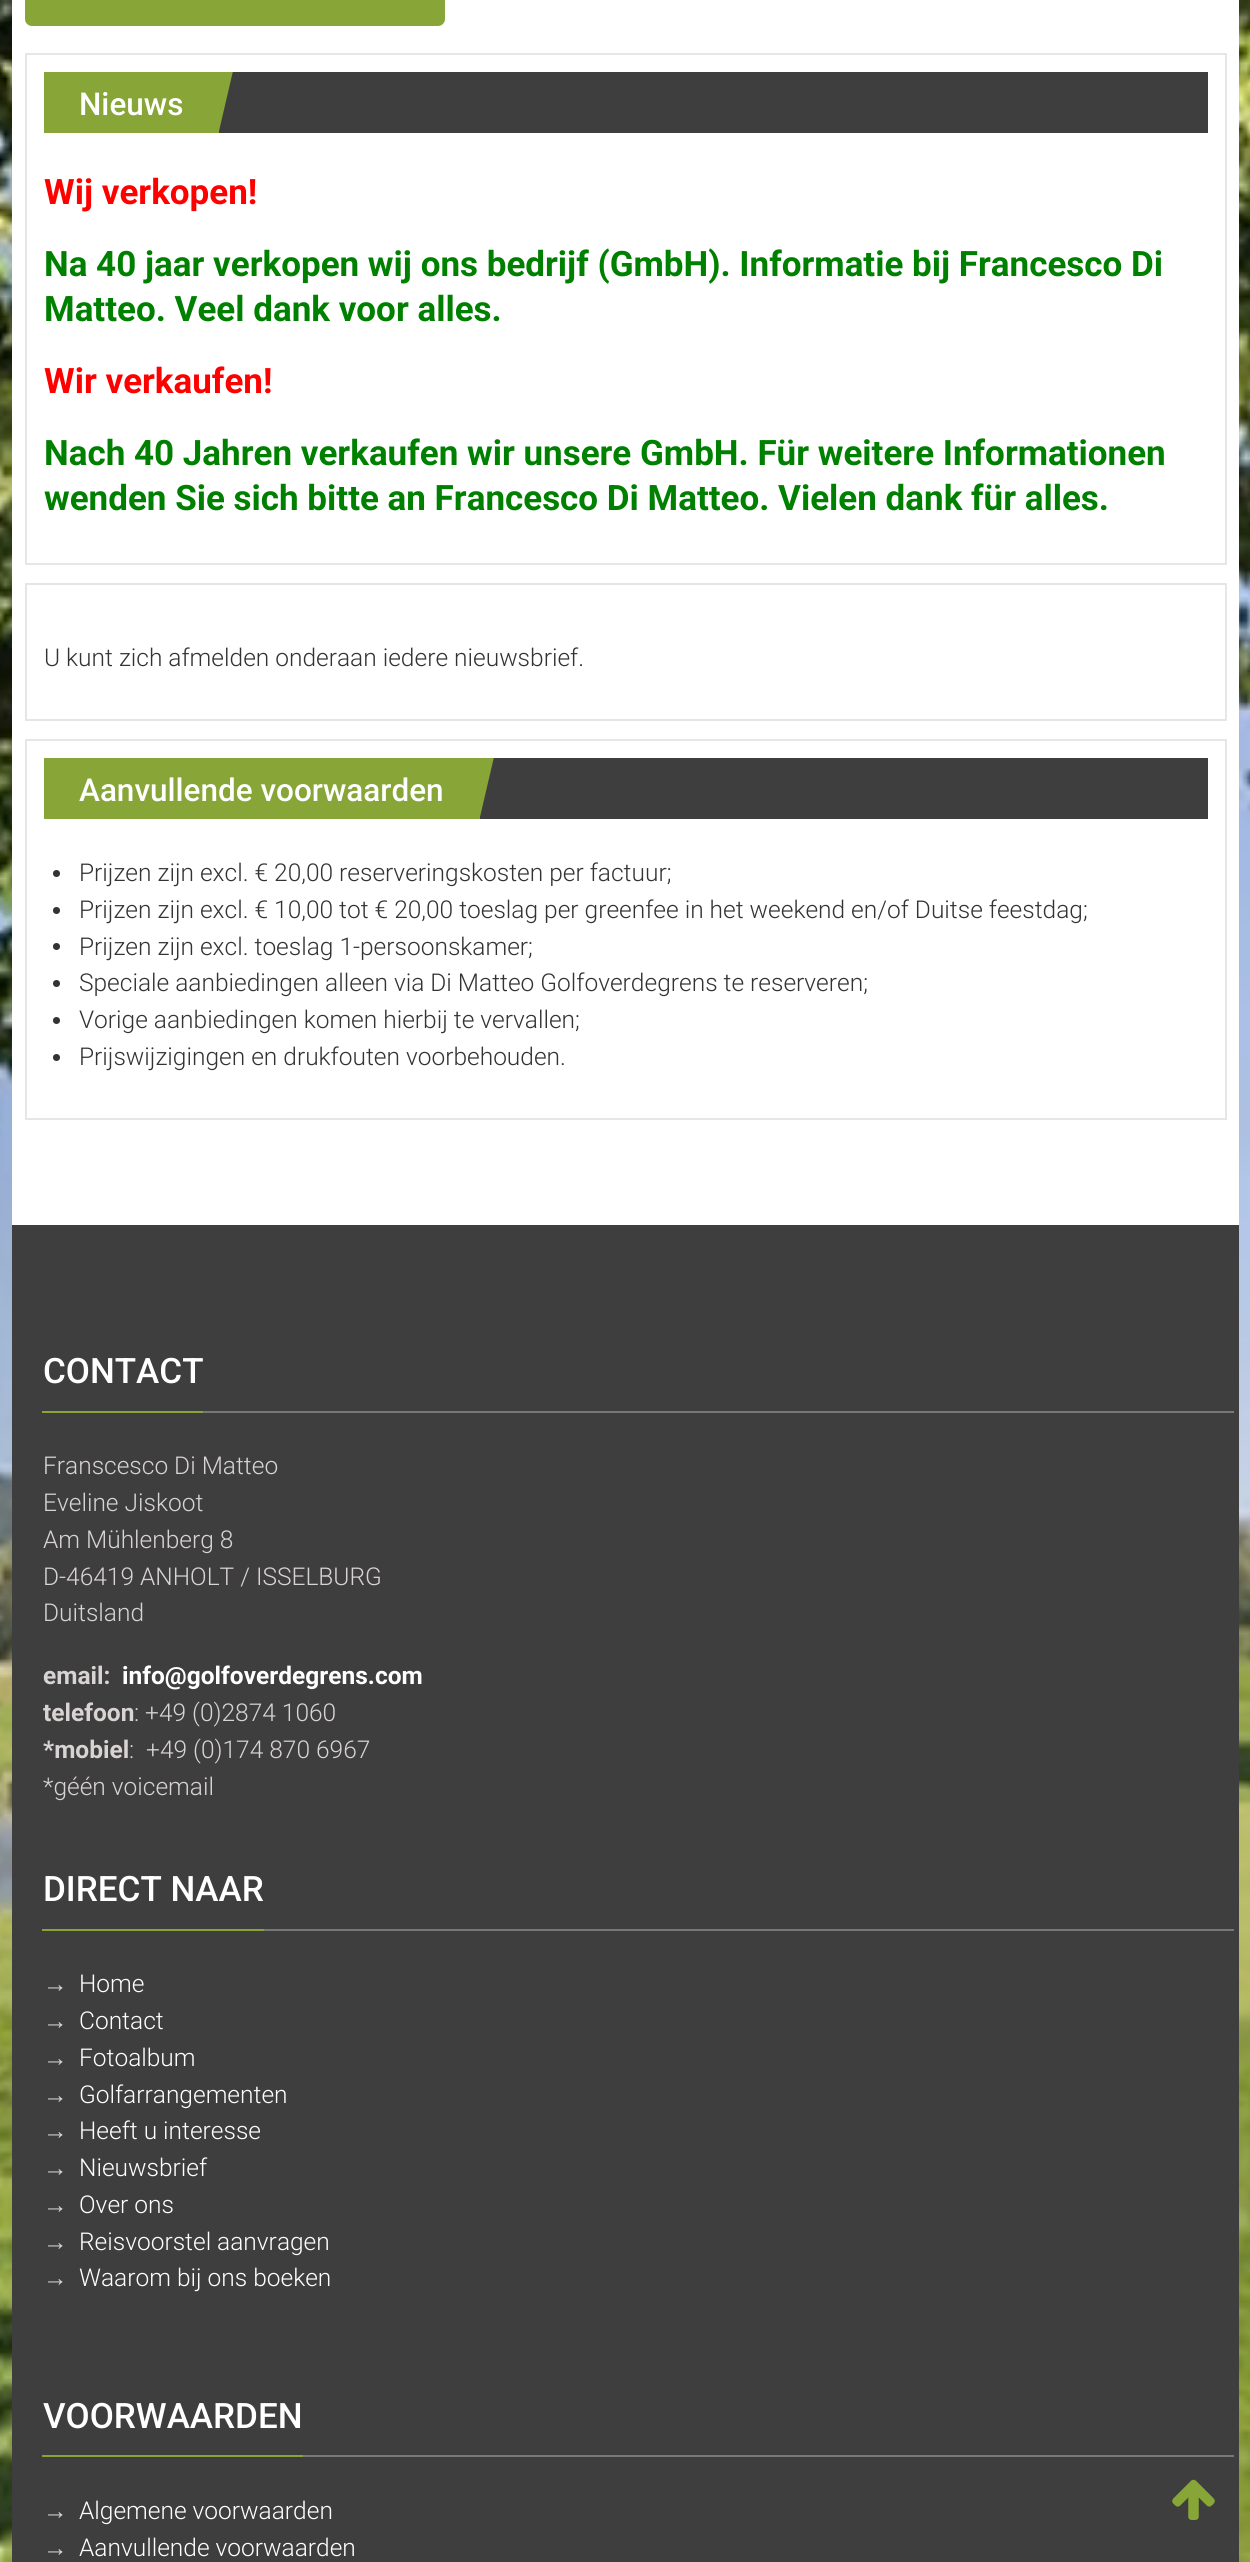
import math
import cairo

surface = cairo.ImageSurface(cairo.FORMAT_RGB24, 1250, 2562)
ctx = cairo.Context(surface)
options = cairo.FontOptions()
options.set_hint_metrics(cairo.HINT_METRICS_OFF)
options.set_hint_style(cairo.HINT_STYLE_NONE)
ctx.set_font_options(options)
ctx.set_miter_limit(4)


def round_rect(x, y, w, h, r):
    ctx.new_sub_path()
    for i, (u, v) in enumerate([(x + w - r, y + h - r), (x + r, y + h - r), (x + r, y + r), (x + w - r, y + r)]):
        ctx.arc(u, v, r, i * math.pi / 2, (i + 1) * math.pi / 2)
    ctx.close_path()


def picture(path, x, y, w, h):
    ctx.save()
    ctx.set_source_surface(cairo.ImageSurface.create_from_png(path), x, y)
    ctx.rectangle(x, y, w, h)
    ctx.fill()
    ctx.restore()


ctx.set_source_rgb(1, 1, 1)
ctx.paint()
picture("img1.png", 0, 0, 1250, 2562)
ctx.set_source_rgb(1, 1, 1)
ctx.rectangle(12, 0, 1227, 1225)
ctx.fill()
ctx.set_source_rgb(0.533, 0.647, 0.216)
round_rect(27, -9, 416, 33, 5)
ctx.fill_preserve()
ctx.set_line_width(4)
ctx.stroke()
ctx.rectangle(26, 54, 1200, 510)
ctx.set_source_rgb(0.902, 0.902, 0.902)
ctx.set_line_width(2)
ctx.stroke()
ctx.set_source_rgb(0.243, 0.243, 0.243)
ctx.rectangle(219, 72, 989, 61)
ctx.fill()
ctx.set_source_rgb(0.533, 0.647, 0.216)
ctx.rectangle(44, 72, 175, 61)
ctx.fill()
ctx.save()
ctx.rectangle(44, 72, 1164, 61)
ctx.clip()
ctx.new_path()
ctx.move_to(233, 71)
ctx.line_to(219, 131)
ctx.line_to(160, 117)
ctx.line_to(174, 58)
ctx.close_path()
ctx.fill()
ctx.restore()
ctx.select_font_face("Roboto Medium")
ctx.set_font_size(31.5)
ctx.set_source_rgb(1, 1, 1)
ctx.move_to(79, 115)
ctx.show_text("Nieuws")
ctx.select_font_face("Roboto", cairo.FONT_SLANT_NORMAL, cairo.FONT_WEIGHT_BOLD)
ctx.set_font_size(35)
ctx.set_source_rgb(1, 0, 0)
ctx.move_to(44, 204)
ctx.show_text("Wij verkopen!")
ctx.set_source_rgb(0, 0.502, 0)
ctx.move_to(44, 276)
ctx.show_text("Na 40 jaar verkopen wij ons bedrijf (GmbH). Informatie bij Francesco Di")
ctx.move_to(44, 321)
ctx.show_text("Matteo. Veel dank voor alles.")
ctx.set_source_rgb(1, 0, 0)
ctx.move_to(44, 393)
ctx.show_text("Wir verkaufen!")
ctx.set_source_rgb(0, 0.502, 0)
ctx.move_to(44, 465)
ctx.show_text("Nach 40 Jahren verkaufen wir unsere GmbH. Für weitere Informationen")
ctx.move_to(44, 510)
ctx.show_text("wenden Sie sich bitte an Francesco Di Matteo. Vielen dank für alles.")
ctx.rectangle(26, 584, 1200, 136)
ctx.set_source_rgb(0.902, 0.902, 0.902)
ctx.stroke()
ctx.select_font_face("Roboto Light")
ctx.set_font_size(24.5)
ctx.set_source_rgb(0.2, 0.2, 0.2)
ctx.move_to(44, 666)
ctx.show_text("U kunt zich afmelden onderaan iedere nieuwsbrief.")
ctx.rectangle(26, 740, 1200, 379)
ctx.set_source_rgb(0.902, 0.902, 0.902)
ctx.stroke()
ctx.set_source_rgb(0.243, 0.243, 0.243)
ctx.rectangle(480, 758, 728, 61)
ctx.fill()
ctx.set_source_rgb(0.533, 0.647, 0.216)
ctx.rectangle(44, 758, 436, 61)
ctx.fill()
ctx.save()
ctx.rectangle(44, 758, 1164, 61)
ctx.clip()
ctx.new_path()
ctx.move_to(494, 757)
ctx.line_to(480, 817)
ctx.line_to(420, 803)
ctx.line_to(434, 744)
ctx.close_path()
ctx.fill()
ctx.restore()
ctx.select_font_face("Roboto Medium")
ctx.set_font_size(31.5)
ctx.set_source_rgb(1, 1, 1)
ctx.move_to(79, 801)
ctx.show_text("Aanvullende voorwaarden")
ctx.set_source_rgb(0.2, 0.2, 0.2)
ctx.new_path()
ctx.arc(56.5, 873.5, 3.5, 0, 2 * math.pi)
ctx.fill()
ctx.select_font_face("Roboto Light")
ctx.set_font_size(24.5)
ctx.move_to(79, 881)
ctx.show_text("Prijzen zijn excl. € 20,00 reserveringskosten per factuur;")
ctx.new_path()
ctx.arc(56.5, 910.5, 3.5, 0, 2 * math.pi)
ctx.fill()
ctx.move_to(79, 918)
ctx.show_text("Prijzen zijn excl. € 10,00 tot € 20,00 toeslag per greenfee in het weekend en/of Duitse feestdag;")
ctx.new_path()
ctx.arc(56.5, 946.5, 3.5, 0, 2 * math.pi)
ctx.fill()
ctx.move_to(79, 955)
ctx.show_text("Prijzen zijn excl. toeslag 1-persoonskamer;")
ctx.new_path()
ctx.arc(56.5, 983.5, 3.5, 0, 2 * math.pi)
ctx.fill()
ctx.move_to(79, 991)
ctx.show_text("Speciale aanbiedingen alleen via Di Matteo Golfoverdegrens te reserveren;")
ctx.new_path()
ctx.arc(56.5, 1020.5, 3.5, 0, 2 * math.pi)
ctx.fill()
ctx.move_to(79, 1028)
ctx.show_text("Vorige aanbiedingen komen hierbij te vervallen;")
ctx.new_path()
ctx.arc(56.5, 1057.5, 3.5, 0, 2 * math.pi)
ctx.fill()
ctx.move_to(79, 1065)
ctx.show_text("Prijswijzigingen en drukfouten voorbehouden.")
ctx.set_source_rgb(0.243, 0.243, 0.243)
ctx.rectangle(12, 1225, 1227, 1337)
ctx.fill()
ctx.set_source_rgb(0.471, 0.471, 0.471)
ctx.rectangle(203, 1411, 1031, 2)
ctx.fill()
ctx.set_source_rgb(0.533, 0.647, 0.216)
ctx.rectangle(42, 1411, 161, 2)
ctx.fill()
ctx.select_font_face("Roboto Medium")
ctx.set_font_size(35)
ctx.set_source_rgb(1, 1, 1)
ctx.move_to(43, 1383)
ctx.show_text("CONTACT")
ctx.select_font_face("Roboto Light")
ctx.set_font_size(24.5)
ctx.set_source_rgb(0.851, 0.831, 0.831)
ctx.move_to(43, 1474)
ctx.show_text("Franscesco Di Matteo")
ctx.move_to(43, 1511)
ctx.show_text("Eveline Jiskoot")
ctx.move_to(43, 1548)
ctx.show_text("Am Mühlenberg 8")
ctx.move_to(43, 1585)
ctx.show_text("D-46419 ANHOLT / ISSELBURG")
ctx.move_to(43, 1621)
ctx.show_text("Duitsland")
ctx.select_font_face("Roboto", cairo.FONT_SLANT_NORMAL, cairo.FONT_WEIGHT_BOLD)
ctx.move_to(43, 1684)
ctx.show_text("email:")
ctx.set_source_rgb(1, 1, 1)
ctx.move_to(122, 1684)
ctx.show_text("info@golfoverdegrens.com")
ctx.set_source_rgb(0.851, 0.831, 0.831)
ctx.move_to(43, 1721)
ctx.show_text("telefoon")
ctx.select_font_face("Roboto Light")
ctx.move_to(134, 1721)
ctx.show_text(": +49 (0)2874 1060")
ctx.select_font_face("Roboto", cairo.FONT_SLANT_NORMAL, cairo.FONT_WEIGHT_BOLD)
ctx.move_to(43, 1758)
ctx.show_text("*mobiel")
ctx.select_font_face("Roboto Light")
ctx.move_to(129, 1758)
ctx.show_text(":  +49 (0)174 870 6967")
ctx.move_to(43, 1795)
ctx.show_text("*géén voicemail")
ctx.set_source_rgb(0.471, 0.471, 0.471)
ctx.rectangle(264, 1929, 970, 2)
ctx.fill()
ctx.set_source_rgb(0.533, 0.647, 0.216)
ctx.rectangle(42, 1929, 222, 2)
ctx.fill()
ctx.select_font_face("Roboto Medium")
ctx.set_font_size(35)
ctx.set_source_rgb(1, 1, 1)
ctx.move_to(43, 1901)
ctx.show_text("DIRECT NAAR")
ctx.select_font_face("Liberation Sans")
ctx.set_font_size(24.5)
ctx.set_source_rgb(0.851, 0.831, 0.831)
ctx.move_to(43, 1992)
ctx.show_text("→")
ctx.select_font_face("Roboto Light")
ctx.set_source_rgb(1, 1, 1)
ctx.move_to(79, 1992)
ctx.show_text("Home")
ctx.select_font_face("Liberation Sans")
ctx.set_source_rgb(0.851, 0.831, 0.831)
ctx.move_to(43, 2029)
ctx.show_text("→")
ctx.select_font_face("Roboto Light")
ctx.set_source_rgb(1, 1, 1)
ctx.move_to(79, 2029)
ctx.show_text("Contact")
ctx.select_font_face("Liberation Sans")
ctx.set_source_rgb(0.851, 0.831, 0.831)
ctx.move_to(43, 2066)
ctx.show_text("→")
ctx.select_font_face("Roboto Light")
ctx.set_source_rgb(1, 1, 1)
ctx.move_to(79, 2066)
ctx.show_text("Fotoalbum")
ctx.select_font_face("Liberation Sans")
ctx.set_source_rgb(0.851, 0.831, 0.831)
ctx.move_to(43, 2103)
ctx.show_text("→")
ctx.select_font_face("Roboto Light")
ctx.set_source_rgb(1, 1, 1)
ctx.move_to(79, 2103)
ctx.show_text("Golfarrangementen")
ctx.select_font_face("Liberation Sans")
ctx.set_source_rgb(0.851, 0.831, 0.831)
ctx.move_to(43, 2139)
ctx.show_text("→")
ctx.select_font_face("Roboto Light")
ctx.set_source_rgb(1, 1, 1)
ctx.move_to(79, 2139)
ctx.show_text("Heeft u interesse")
ctx.select_font_face("Liberation Sans")
ctx.set_source_rgb(0.851, 0.831, 0.831)
ctx.move_to(43, 2176)
ctx.show_text("→")
ctx.select_font_face("Roboto Light")
ctx.set_source_rgb(1, 1, 1)
ctx.move_to(79, 2176)
ctx.show_text("Nieuwsbrief")
ctx.select_font_face("Liberation Sans")
ctx.set_source_rgb(0.851, 0.831, 0.831)
ctx.move_to(43, 2213)
ctx.show_text("→")
ctx.select_font_face("Roboto Light")
ctx.set_source_rgb(1, 1, 1)
ctx.move_to(79, 2213)
ctx.show_text("Over ons")
ctx.select_font_face("Liberation Sans")
ctx.set_source_rgb(0.851, 0.831, 0.831)
ctx.move_to(43, 2250)
ctx.show_text("→")
ctx.select_font_face("Roboto Light")
ctx.set_source_rgb(1, 1, 1)
ctx.move_to(79, 2250)
ctx.show_text("Reisvoorstel aanvragen")
ctx.select_font_face("Liberation Sans")
ctx.set_source_rgb(0.851, 0.831, 0.831)
ctx.move_to(43, 2286)
ctx.show_text("→")
ctx.select_font_face("Roboto Light")
ctx.set_source_rgb(1, 1, 1)
ctx.move_to(79, 2286)
ctx.show_text("Waarom bij ons boeken")
ctx.set_source_rgb(0.471, 0.471, 0.471)
ctx.rectangle(303, 2455, 931, 2)
ctx.fill()
ctx.set_source_rgb(0.533, 0.647, 0.216)
ctx.rectangle(42, 2455, 261, 2)
ctx.fill()
ctx.select_font_face("Roboto Medium")
ctx.set_font_size(35)
ctx.set_source_rgb(1, 1, 1)
ctx.move_to(43, 2428)
ctx.show_text("VOORWAARDEN")
ctx.select_font_face("Liberation Sans")
ctx.set_font_size(24.5)
ctx.set_source_rgb(0.851, 0.831, 0.831)
ctx.move_to(43, 2519)
ctx.show_text("→")
ctx.select_font_face("Roboto Light")
ctx.set_source_rgb(1, 1, 1)
ctx.move_to(79, 2519)
ctx.show_text("Algemene voorwaarden")
ctx.select_font_face("Liberation Sans")
ctx.set_source_rgb(0.851, 0.831, 0.831)
ctx.move_to(43, 2556)
ctx.show_text("→")
ctx.select_font_face("Roboto Light")
ctx.set_source_rgb(1, 1, 1)
ctx.move_to(79, 2556)
ctx.show_text("Aanvullende voorwaarden")
picture("img2.png", 1172, 2479, 43, 41)
surface.write_to_png("page.png")
